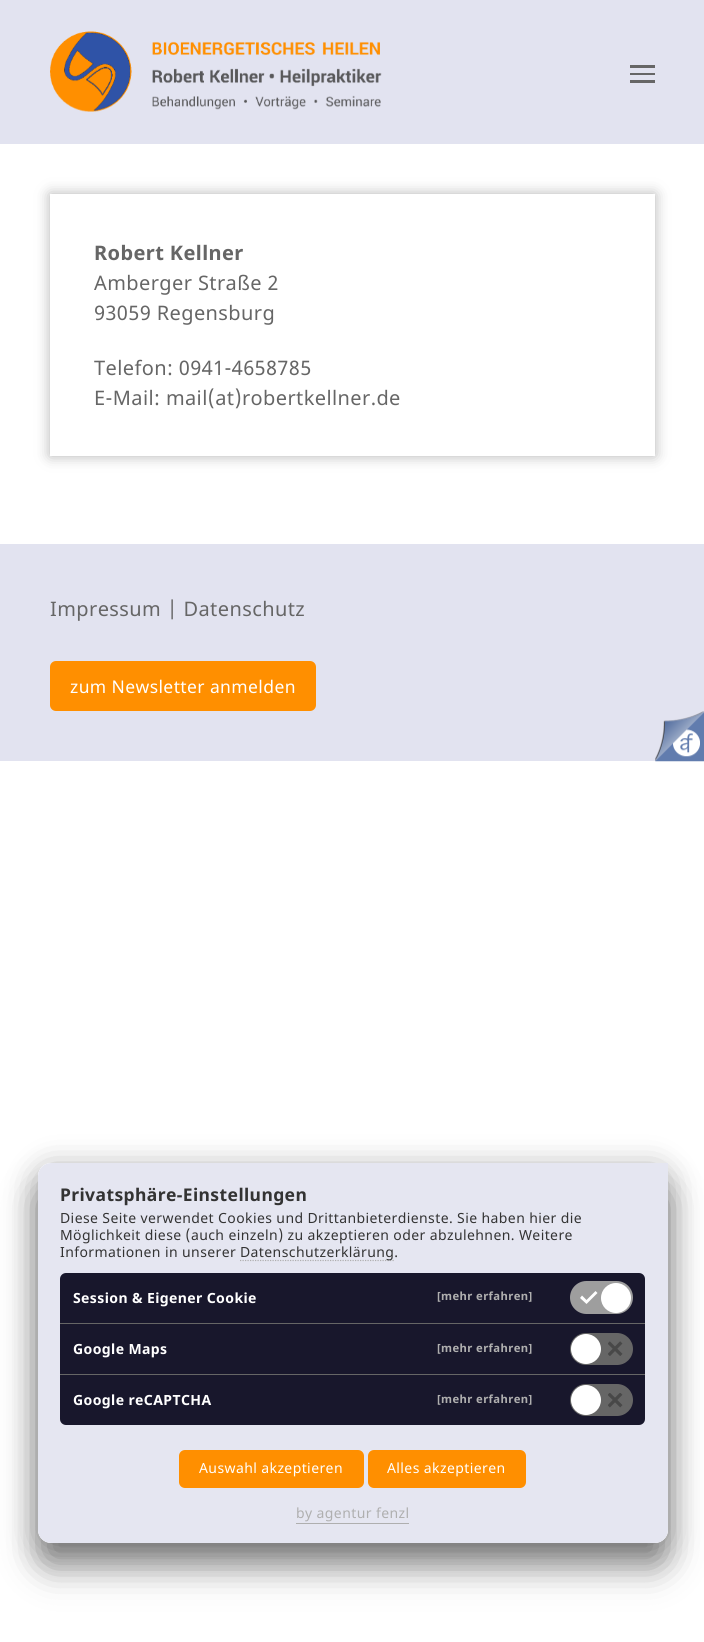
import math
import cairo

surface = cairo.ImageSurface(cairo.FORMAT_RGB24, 704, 1642)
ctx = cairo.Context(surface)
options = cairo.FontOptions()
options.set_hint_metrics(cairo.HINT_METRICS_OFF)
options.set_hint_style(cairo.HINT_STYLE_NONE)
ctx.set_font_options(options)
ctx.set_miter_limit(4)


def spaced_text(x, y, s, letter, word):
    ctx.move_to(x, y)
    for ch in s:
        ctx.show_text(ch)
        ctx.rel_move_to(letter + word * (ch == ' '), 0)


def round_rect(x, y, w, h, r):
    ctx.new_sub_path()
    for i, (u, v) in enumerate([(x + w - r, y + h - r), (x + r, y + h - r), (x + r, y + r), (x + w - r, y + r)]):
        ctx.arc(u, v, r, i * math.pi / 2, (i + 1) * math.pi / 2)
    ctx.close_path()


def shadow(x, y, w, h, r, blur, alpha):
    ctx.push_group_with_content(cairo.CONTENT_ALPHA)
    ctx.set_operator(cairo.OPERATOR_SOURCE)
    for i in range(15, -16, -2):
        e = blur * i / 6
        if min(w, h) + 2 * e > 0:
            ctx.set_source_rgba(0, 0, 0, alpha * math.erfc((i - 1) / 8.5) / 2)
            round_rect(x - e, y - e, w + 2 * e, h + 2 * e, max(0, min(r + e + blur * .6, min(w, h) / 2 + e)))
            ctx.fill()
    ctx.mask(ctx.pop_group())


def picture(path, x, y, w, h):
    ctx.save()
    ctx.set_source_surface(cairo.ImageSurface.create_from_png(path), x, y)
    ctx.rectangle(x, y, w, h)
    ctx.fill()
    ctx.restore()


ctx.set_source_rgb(1, 1, 1)
ctx.paint()
ctx.set_source_rgb(0.886, 0.89, 0.941)
ctx.rectangle(0, 0, 704, 144)
ctx.fill()
picture("img1.png", 50, 31, 332, 81)
ctx.set_source_rgb(0.4, 0.4, 0.4)
ctx.rectangle(630, 65, 25, 3)
ctx.fill()
ctx.rectangle(630, 73, 25, 2)
ctx.fill()
ctx.rectangle(630, 80, 25, 3)
ctx.fill()
ctx.save()
ctx.set_fill_rule(cairo.FILL_RULE_EVEN_ODD)
ctx.new_path()
ctx.move_to(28, 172)
ctx.line_to(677, 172)
ctx.line_to(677, 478)
ctx.line_to(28, 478)
ctx.close_path()
ctx.move_to(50, 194)
ctx.line_to(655, 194)
ctx.line_to(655, 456)
ctx.line_to(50, 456)
ctx.close_path()
ctx.clip()
ctx.set_source_rgb(0.702, 0.702, 0.702)
shadow(50, 194, 605, 262, 0, 7, 1)
ctx.restore()
ctx.select_font_face("Noto Sans", cairo.FONT_SLANT_NORMAL, cairo.FONT_WEIGHT_BOLD)
ctx.set_font_size(20)
spaced_text(94, 260, "Robert Kellner", 0.4, 0)
ctx.select_font_face("Noto Sans")
spaced_text(94, 290, "Amberger Straße 2", 0.4, 0)
spaced_text(94, 320, "93059 Regensburg", 0.4, 0)
spaced_text(94, 375, "Telefon: 0941-4658785", 0.4, 0)
spaced_text(94, 405, "E-Mail: mail(at)robertkellner.de", 0.4, 0)
ctx.set_source_rgb(0.886, 0.89, 0.941)
ctx.rectangle(0, 544, 704, 217)
ctx.fill()
ctx.set_source_rgb(0.4, 0.4, 0.4)
spaced_text(50, 616, "Impressum | Datenschutz", 0.4, 0)
ctx.set_source_rgb(1, 0.561, 0)
round_rect(50, 661, 266, 50, 6)
ctx.fill()
ctx.set_font_size(17.5)
ctx.set_source_rgb(1, 1, 1)
spaced_text(70, 693, "zum Newsletter anmelden", 0.4, 0)
picture("img2.png", 655, 711, 49, 51)
ctx.save()
ctx.set_fill_rule(cairo.FILL_RULE_EVEN_ODD)
ctx.new_path()
ctx.move_to(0, 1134)
ctx.line_to(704, 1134)
ctx.line_to(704, 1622)
ctx.line_to(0, 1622)
ctx.close_path()
ctx.move_to(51, 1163)
ctx.line_to(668, 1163)
ctx.line_to(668, 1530)
ctx.curve_to(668, 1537, 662, 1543, 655, 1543)
ctx.line_to(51, 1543)
ctx.curve_to(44, 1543, 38, 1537, 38, 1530)
ctx.line_to(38, 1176)
ctx.curve_to(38, 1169, 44, 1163, 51, 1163)
ctx.close_path()
ctx.clip()
ctx.set_source_rgb(0, 0, 0)
shadow(38, 1188, 630, 380, 13, 17.5, 0.4)
ctx.restore()
ctx.save()
ctx.set_fill_rule(cairo.FILL_RULE_EVEN_ODD)
ctx.new_path()
ctx.move_to(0, 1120)
ctx.line_to(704, 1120)
ctx.line_to(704, 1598)
ctx.line_to(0, 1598)
ctx.close_path()
ctx.move_to(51, 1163)
ctx.line_to(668, 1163)
ctx.line_to(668, 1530)
ctx.curve_to(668, 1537, 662, 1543, 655, 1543)
ctx.line_to(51, 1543)
ctx.curve_to(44, 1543, 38, 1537, 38, 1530)
ctx.line_to(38, 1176)
ctx.curve_to(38, 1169, 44, 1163, 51, 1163)
ctx.close_path()
ctx.clip()
ctx.set_source_rgb(0, 0, 0)
shadow(38, 1169, 630, 380, 13, 16, 0.3)
ctx.restore()
ctx.set_source_rgba(0.886, 0.89, 0.941, 0.9)
ctx.new_path()
ctx.move_to(51, 1163)
ctx.line_to(668, 1163)
ctx.line_to(668, 1530)
ctx.curve_to(668, 1537, 662, 1543, 655, 1543)
ctx.line_to(51, 1543)
ctx.curve_to(44, 1543, 38, 1537, 38, 1530)
ctx.line_to(38, 1176)
ctx.curve_to(38, 1169, 44, 1163, 51, 1163)
ctx.close_path()
ctx.fill()
ctx.select_font_face("Noto Sans", cairo.FONT_SLANT_NORMAL, cairo.FONT_WEIGHT_BOLD)
ctx.set_source_rgb(0.2, 0.2, 0.2)
spaced_text(60, 1201, "Privatsphäre-Einstellungen", 0.4, 0)
ctx.select_font_face("Noto Sans")
ctx.set_font_size(14)
spaced_text(60, 1223, "Diese Seite verwendet Cookies und Drittanbieterdienste. Sie haben hier die", 0.4, 0)
spaced_text(60, 1240, "Möglichkeit diese (auch einzeln) zu akzeptieren oder abzulehnen. Weitere", 0.4, 0)
spaced_text(60, 1257, "Informationen in unserer", 0.4, 0)
ctx.new_path()
ctx.move_to(240, 1260.5)
ctx.line_to(394, 1260.5)
ctx.set_source_rgb(0.686, 0.686, 0.686)
ctx.set_line_width(1.2)
ctx.set_dash([1.25, 1.25])
ctx.stroke()
ctx.set_source_rgb(0.2, 0.2, 0.2)
spaced_text(240, 1257, "Datenschutzerklärung.", 0.4, 0)
ctx.set_source_rgb(0.094, 0.09, 0.173)
round_rect(60, 1273, 585, 152, 6)
ctx.fill()
ctx.set_source_rgb(0.4, 0.4, 0.4)
ctx.rectangle(60, 1323, 585, 1)
ctx.fill()
ctx.select_font_face("Noto Sans", cairo.FONT_SLANT_NORMAL, cairo.FONT_WEIGHT_BOLD)
ctx.set_source_rgb(1, 1, 1)
spaced_text(73, 1303, "Session & Eigener Cookie", 0.4, 0)
ctx.set_source_rgb(0.62, 0.62, 0.62)
round_rect(570, 1281, 63, 33, 16.5)
ctx.fill()
ctx.set_source_rgb(1, 1, 1)
ctx.new_path()
ctx.move_to(586.5, 1304)
ctx.line_to(580, 1298)
ctx.line_to(582, 1295.5)
ctx.line_to(586.5, 1300)
ctx.line_to(595.5, 1291)
ctx.line_to(597.5, 1293)
ctx.close_path()
ctx.fill()
ctx.arc(616, 1298, 15, 0, 2 * math.pi)
ctx.fill()
ctx.set_font_size(11.25)
ctx.set_source_rgb(0.686, 0.686, 0.686)
spaced_text(437, 1300, "[mehr erfahren]", 0.4, 0)
ctx.set_source_rgb(0.4, 0.4, 0.4)
ctx.rectangle(60, 1374, 585, 1)
ctx.fill()
ctx.set_font_size(14)
ctx.set_source_rgb(1, 1, 1)
spaced_text(73, 1354, "Google Maps", 0.4, 0)
ctx.set_source_rgb(0.4, 0.4, 0.4)
round_rect(570, 1333, 63, 32, 16)
ctx.fill()
ctx.set_source_rgb(1, 1, 1)
ctx.arc(586, 1349, 15, 0, 2 * math.pi)
ctx.fill()
picture("img3.png", 608, 1341, 15, 15)
ctx.set_font_size(11.25)
ctx.set_source_rgb(0.686, 0.686, 0.686)
spaced_text(437, 1352, "[mehr erfahren]", 0.4, 0)
ctx.set_font_size(14)
ctx.set_source_rgb(1, 1, 1)
spaced_text(73, 1405, "Google reCAPTCHA", 0.4, 0)
ctx.set_source_rgb(0.4, 0.4, 0.4)
round_rect(570, 1384, 63, 32, 16)
ctx.fill()
ctx.set_source_rgb(1, 1, 1)
ctx.arc(586, 1400, 15, 0, 2 * math.pi)
ctx.fill()
picture("img4.png", 608, 1393, 15, 15)
ctx.set_font_size(11.25)
ctx.set_source_rgb(0.686, 0.686, 0.686)
spaced_text(437, 1403, "[mehr erfahren]", 0.4, 0)
ctx.set_source_rgb(1, 0.561, 0)
round_rect(179, 1450, 185, 38, 6)
ctx.fill()
ctx.select_font_face("Noto Sans")
ctx.set_font_size(14)
ctx.set_source_rgb(1, 1, 1)
spaced_text(199, 1473, "Auswahl akzeptieren", 0.4, 0)
ctx.set_source_rgb(1, 0.561, 0)
round_rect(368, 1450, 158, 38, 6)
ctx.fill()
ctx.set_source_rgb(1, 1, 1)
spaced_text(387, 1473, "Alles akzeptieren", 0.4, 0)
ctx.set_source_rgb(0.686, 0.686, 0.686)
spaced_text(296, 1518, "by agentur fenzl", 0.4, 0)
ctx.rectangle(296, 1523, 113, 1)
ctx.fill()
surface.write_to_png("page.png")
